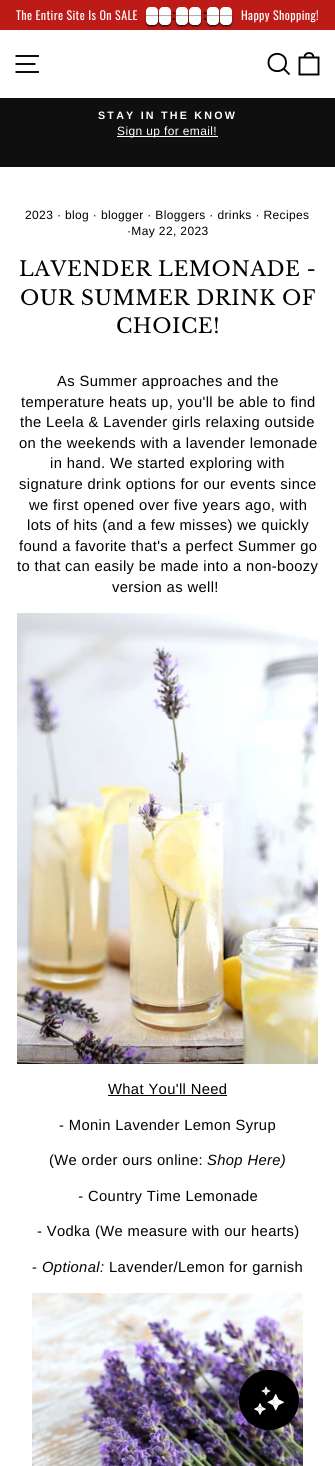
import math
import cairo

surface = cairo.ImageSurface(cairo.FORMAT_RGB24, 335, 1466)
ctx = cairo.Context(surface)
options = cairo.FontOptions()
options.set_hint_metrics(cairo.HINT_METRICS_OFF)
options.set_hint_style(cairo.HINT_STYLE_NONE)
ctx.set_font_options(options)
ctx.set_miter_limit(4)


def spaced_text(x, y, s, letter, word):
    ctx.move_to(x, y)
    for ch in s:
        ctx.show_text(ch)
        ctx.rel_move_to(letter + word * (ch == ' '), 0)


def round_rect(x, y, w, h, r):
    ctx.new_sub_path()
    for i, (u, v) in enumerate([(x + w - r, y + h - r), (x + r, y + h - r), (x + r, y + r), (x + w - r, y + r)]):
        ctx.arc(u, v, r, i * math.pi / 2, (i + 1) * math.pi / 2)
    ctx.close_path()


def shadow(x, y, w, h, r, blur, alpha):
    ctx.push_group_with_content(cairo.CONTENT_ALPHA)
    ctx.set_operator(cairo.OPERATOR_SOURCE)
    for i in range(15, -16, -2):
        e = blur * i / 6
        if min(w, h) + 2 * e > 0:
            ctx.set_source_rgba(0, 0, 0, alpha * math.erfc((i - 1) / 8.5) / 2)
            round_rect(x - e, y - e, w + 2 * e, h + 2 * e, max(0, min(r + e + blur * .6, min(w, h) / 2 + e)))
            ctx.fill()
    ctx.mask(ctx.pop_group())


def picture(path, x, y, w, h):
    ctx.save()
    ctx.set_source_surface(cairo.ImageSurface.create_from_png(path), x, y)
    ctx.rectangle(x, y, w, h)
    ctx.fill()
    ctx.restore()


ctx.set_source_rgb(1, 1, 1)
ctx.paint()
ctx.set_source_rgb(0.741, 0.106, 0.09)
ctx.rectangle(0, 0, 335, 30)
ctx.fill()
ctx.select_font_face("Oswald")
ctx.set_font_size(12)
ctx.set_source_rgb(1, 1, 1)
spaced_text(16, 20, "The Entire Site Is On SALE", 0.37, 0)
ctx.set_source_rgb(0, 0, 0)
shadow(146, 9, 12, 18, 4, 1.5, 0.24)
shadow(146, 17, 12, 9, 4, 0.5, 0.4)
shadow(159, 9, 12, 18, 4, 1.5, 0.24)
ctx.set_source_rgb(0.035, 0.031, 0.035)
ctx.arc(174, 19, 1, 0, 2 * math.pi)
ctx.fill()
ctx.set_source_rgb(0, 0, 0)
shadow(159, 17, 12, 9, 4, 0.5, 0.4)
ctx.set_source_rgb(1, 1, 1)
ctx.new_path()
ctx.move_to(150, 7)
ctx.line_to(154, 7)
ctx.curve_to(156, 7, 158, 9, 158, 11)
ctx.line_to(158, 16)
ctx.line_to(146, 16)
ctx.line_to(146, 11)
ctx.curve_to(146, 9, 148, 7, 150, 7)
ctx.close_path()
ctx.fill()
ctx.set_source_rgba(0.2, 0.2, 0.2, 0.4)
ctx.rectangle(146, 15, 12, 1)
ctx.fill()
ctx.set_source_rgb(0, 0, 0)
shadow(146, 17, 12, 9, 4, 0.5, 0.4)
ctx.set_source_rgb(1, 1, 1)
ctx.new_path()
ctx.move_to(146, 16)
ctx.line_to(158, 16)
ctx.line_to(158, 21)
ctx.curve_to(158, 23, 156, 25, 154, 25)
ctx.line_to(150, 25)
ctx.curve_to(148, 25, 146, 23, 146, 21)
ctx.close_path()
ctx.fill()
ctx.set_source_rgba(0.8, 0.8, 0.8, 0.1)
ctx.rectangle(146, 16, 12, 1)
ctx.fill()
ctx.set_source_rgb(0.035, 0.031, 0.035)
ctx.arc(174, 13, 1, 0, 2 * math.pi)
ctx.fill()
ctx.set_source_rgb(0, 0, 0)
shadow(176, 9, 12, 18, 4, 1.5, 0.24)
ctx.set_source_rgb(1, 1, 1)
ctx.new_path()
ctx.move_to(163, 7)
ctx.line_to(167, 7)
ctx.curve_to(169, 7, 171, 9, 171, 11)
ctx.line_to(171, 16)
ctx.line_to(159, 16)
ctx.line_to(159, 11)
ctx.curve_to(159, 9, 161, 7, 163, 7)
ctx.close_path()
ctx.fill()
ctx.set_source_rgba(0.2, 0.2, 0.2, 0.4)
ctx.rectangle(159, 15, 12, 1)
ctx.fill()
ctx.set_source_rgb(0, 0, 0)
shadow(159, 17, 12, 9, 4, 0.5, 0.4)
ctx.set_source_rgb(1, 1, 1)
ctx.new_path()
ctx.move_to(159, 16)
ctx.line_to(171, 16)
ctx.line_to(171, 21)
ctx.curve_to(171, 23, 169, 25, 167, 25)
ctx.line_to(163, 25)
ctx.curve_to(161, 25, 159, 23, 159, 21)
ctx.close_path()
ctx.fill()
ctx.set_source_rgba(0.8, 0.8, 0.8, 0.1)
ctx.rectangle(159, 16, 12, 1)
ctx.fill()
ctx.set_source_rgb(0, 0, 0)
shadow(176, 17, 12, 9, 4, 0.5, 0.4)
shadow(189, 9, 12, 18, 4, 1.5, 0.24)
shadow(189, 17, 12, 9, 4, 0.5, 0.4)
ctx.set_source_rgb(1, 1, 1)
ctx.new_path()
ctx.move_to(180, 7)
ctx.line_to(184, 7)
ctx.curve_to(186, 7, 188, 9, 188, 11)
ctx.line_to(188, 16)
ctx.line_to(176, 16)
ctx.line_to(176, 11)
ctx.curve_to(176, 9, 178, 7, 180, 7)
ctx.close_path()
ctx.fill()
ctx.set_source_rgba(0.2, 0.2, 0.2, 0.4)
ctx.rectangle(176, 15, 12, 1)
ctx.fill()
ctx.set_source_rgb(0, 0, 0)
shadow(176, 17, 12, 9, 4, 0.5, 0.4)
ctx.set_source_rgb(1, 1, 1)
ctx.new_path()
ctx.move_to(176, 16)
ctx.line_to(188, 16)
ctx.line_to(188, 21)
ctx.curve_to(188, 23, 186, 25, 184, 25)
ctx.line_to(180, 25)
ctx.curve_to(178, 25, 176, 23, 176, 21)
ctx.close_path()
ctx.fill()
ctx.set_source_rgba(0.8, 0.8, 0.8, 0.1)
ctx.rectangle(176, 16, 12, 1)
ctx.fill()
ctx.set_source_rgb(1, 1, 1)
ctx.new_path()
ctx.move_to(193, 7)
ctx.line_to(197, 7)
ctx.curve_to(199, 7, 201, 9, 201, 11)
ctx.line_to(201, 16)
ctx.line_to(189, 16)
ctx.line_to(189, 11)
ctx.curve_to(189, 9, 191, 7, 193, 7)
ctx.close_path()
ctx.fill()
ctx.set_source_rgba(0.2, 0.2, 0.2, 0.4)
ctx.rectangle(189, 15, 12, 1)
ctx.fill()
ctx.set_source_rgb(0, 0, 0)
shadow(189, 17, 12, 9, 4, 0.5, 0.4)
ctx.set_source_rgb(1, 1, 1)
ctx.new_path()
ctx.move_to(189, 16)
ctx.line_to(201, 16)
ctx.line_to(201, 21)
ctx.curve_to(201, 23, 199, 25, 197, 25)
ctx.line_to(193, 25)
ctx.curve_to(191, 25, 189, 23, 189, 21)
ctx.close_path()
ctx.fill()
ctx.set_source_rgba(0.8, 0.8, 0.8, 0.1)
ctx.rectangle(189, 16, 12, 1)
ctx.fill()
ctx.set_source_rgb(0.035, 0.031, 0.035)
ctx.arc(205, 13, 1, 0, 2 * math.pi)
ctx.fill()
ctx.arc(205, 19, 1, 0, 2 * math.pi)
ctx.fill()
ctx.set_source_rgb(0, 0, 0)
shadow(207, 9, 12, 18, 4, 1.5, 0.24)
shadow(207, 17, 12, 9, 4, 0.5, 0.4)
shadow(220, 9, 12, 18, 4, 1.5, 0.24)
shadow(220, 17, 12, 9, 4, 0.5, 0.4)
ctx.set_source_rgb(1, 1, 1)
ctx.new_path()
ctx.move_to(211, 7)
ctx.line_to(215, 7)
ctx.curve_to(217, 7, 219, 9, 219, 11)
ctx.line_to(219, 16)
ctx.line_to(207, 16)
ctx.line_to(207, 11)
ctx.curve_to(207, 9, 209, 7, 211, 7)
ctx.close_path()
ctx.fill()
ctx.set_source_rgba(0.2, 0.2, 0.2, 0.4)
ctx.rectangle(207, 15, 12, 1)
ctx.fill()
ctx.set_source_rgb(0, 0, 0)
shadow(207, 17, 12, 9, 4, 0.5, 0.4)
ctx.set_source_rgb(1, 1, 1)
ctx.new_path()
ctx.move_to(207, 16)
ctx.line_to(219, 16)
ctx.line_to(219, 21)
ctx.curve_to(219, 23, 217, 25, 215, 25)
ctx.line_to(211, 25)
ctx.curve_to(209, 25, 207, 23, 207, 21)
ctx.close_path()
ctx.fill()
ctx.set_source_rgba(0.8, 0.8, 0.8, 0.1)
ctx.rectangle(207, 16, 12, 1)
ctx.fill()
ctx.set_source_rgb(1, 1, 1)
ctx.new_path()
ctx.move_to(224, 7)
ctx.line_to(228, 7)
ctx.curve_to(230, 7, 232, 9, 232, 11)
ctx.line_to(232, 16)
ctx.line_to(220, 16)
ctx.line_to(220, 11)
ctx.curve_to(220, 9, 222, 7, 224, 7)
ctx.close_path()
ctx.fill()
ctx.set_source_rgba(0.2, 0.2, 0.2, 0.4)
ctx.rectangle(220, 15, 12, 1)
ctx.fill()
ctx.set_source_rgb(0, 0, 0)
shadow(220, 17, 12, 9, 4, 0.5, 0.4)
ctx.set_source_rgb(1, 1, 1)
ctx.new_path()
ctx.move_to(220, 16)
ctx.line_to(232, 16)
ctx.line_to(232, 21)
ctx.curve_to(232, 23, 230, 25, 228, 25)
ctx.line_to(224, 25)
ctx.curve_to(222, 25, 220, 23, 220, 21)
ctx.close_path()
ctx.fill()
ctx.set_source_rgba(0.8, 0.8, 0.8, 0.1)
ctx.rectangle(220, 16, 12, 1)
ctx.fill()
ctx.set_source_rgb(1, 1, 1)
spaced_text(241, 20, "Happy Shopping!", 0.37, 0)
ctx.new_path()
ctx.move_to(15.5, 56)
ctx.line_to(39, 56)
ctx.move_to(15.5, 64)
ctx.line_to(35.5, 64)
ctx.move_to(15.5, 72)
ctx.line_to(39, 72)
ctx.set_source_rgb(0, 0, 0)
ctx.set_line_width(1.9)
ctx.stroke()
ctx.new_path()
ctx.move_to(286, 62.5)
ctx.curve_to(286, 74, 268.5, 74, 268.5, 62.5)
ctx.curve_to(268.5, 51, 286, 51, 286, 62.5)
ctx.close_path()
ctx.move_to(289.5, 74.5)
ctx.line_to(283.5, 68.5)
ctx.move_to(299.5, 57.5)
ctx.line_to(318.5, 57.5)
ctx.line_to(318.5, 74.5)
ctx.line_to(299.5, 74.5)
ctx.close_path()
ctx.move_to(304.5, 57.5)
ctx.curve_to(304.5, 51.5, 313.5, 51.5, 313.5, 57.5)
ctx.stroke()
ctx.set_source_rgb(0.059, 0.059, 0.059)
ctx.rectangle(0, 98, 335, 69)
ctx.fill()
ctx.select_font_face("Liberation Sans", cairo.FONT_SLANT_NORMAL, cairo.FONT_WEIGHT_BOLD)
ctx.set_font_size(10.75)
ctx.set_source_rgb(1, 1, 1)
spaced_text(98, 119, "STAY IN THE KNOW", 2.2, 0)
ctx.rectangle(117, 136, 101, 1)
ctx.fill()
ctx.select_font_face("Liberation Sans")
ctx.set_font_size(12)
spaced_text(117, 135, "Sign up for email!", 0.37, 0)
ctx.set_source_rgb(0, 0, 0)
spaced_text(25, 219, "2023 · blog · blogger · Bloggers · drinks · Recipes", 0.37, 0)
spaced_text(127, 235, "·May 22, 2023", 0.37, 0)
ctx.select_font_face("Libre Baskerville")
ctx.set_font_size(20.4)
spaced_text(19, 276, "LAVENDER LEMONADE -", 0.5, 0)
spaced_text(20, 305, "OUR SUMMER DRINK OF", 0.5, 0)
spaced_text(116, 333, "CHOICE!", 0.5, 0)
ctx.select_font_face("Liberation Sans")
ctx.set_font_size(14.75)
spaced_text(57, 386, "As Summer approaches and the", 0.37, 0)
spaced_text(21, 407, "temperature heats up, you'll be able to find", 0.37, 0)
spaced_text(20, 427, "the Leela & Lavender girls relaxing outside", 0.37, 0)
spaced_text(19, 448, "on the weekends with a lavender lemonade", 0.37, 0)
spaced_text(50, 468, "in hand. We started exploring with", 0.37, 0)
spaced_text(19, 489, "signature drink options for our events since", 0.37, 0)
spaced_text(29, 510, "we first opened over five years ago, with", 0.37, 0)
spaced_text(27, 530, "lots of hits (and a few misses) we quickly", 0.37, 0)
spaced_text(19, 551, "found a favorite that's a perfect Summer go", 0.37, 0)
spaced_text(17, 571, "to that can easily be made into a non-boozy", 0.37, 0)
spaced_text(112, 592, "version as well!", 0.37, 0)
picture("img1.png", 17, 613, 301, 451)
spaced_text(108, 1094, "What You'll Need", 0.37, 0)
ctx.rectangle(108, 1095, 119, 1)
ctx.fill()
spaced_text(59, 1130, "- Monin Lavender Lemon Syrup", 0.37, 0)
spaced_text(49, 1165, "(We order ours online:", 0.37, 0)
ctx.select_font_face("Liberation Sans", cairo.FONT_SLANT_ITALIC)
spaced_text(207, 1165, "Shop Here)", 0.37, 0)
spaced_text(78, 1201, "-", 0.37, 0)
ctx.select_font_face("Liberation Sans")
spaced_text(88, 1201, "Country Time Lemonade", 0.37, 0)
spaced_text(37, 1236, "- Vodka (We measure with our hearts)", 0.37, 0)
spaced_text(32, 1272, "-", 0.37, 0)
ctx.select_font_face("Liberation Sans", cairo.FONT_SLANT_ITALIC)
spaced_text(42, 1272, "Optional:", 0.37, 0)
ctx.select_font_face("Liberation Sans")
spaced_text(109, 1272, "Lavender/Lemon for garnish", 0.37, 0)
picture("img2.png", 32, 1293, 271, 173)
ctx.arc(269, 1400, 30, 0, 2 * math.pi)
ctx.fill()
picture("img3.png", 254, 1386, 30, 29)
surface.write_to_png("page.png")
